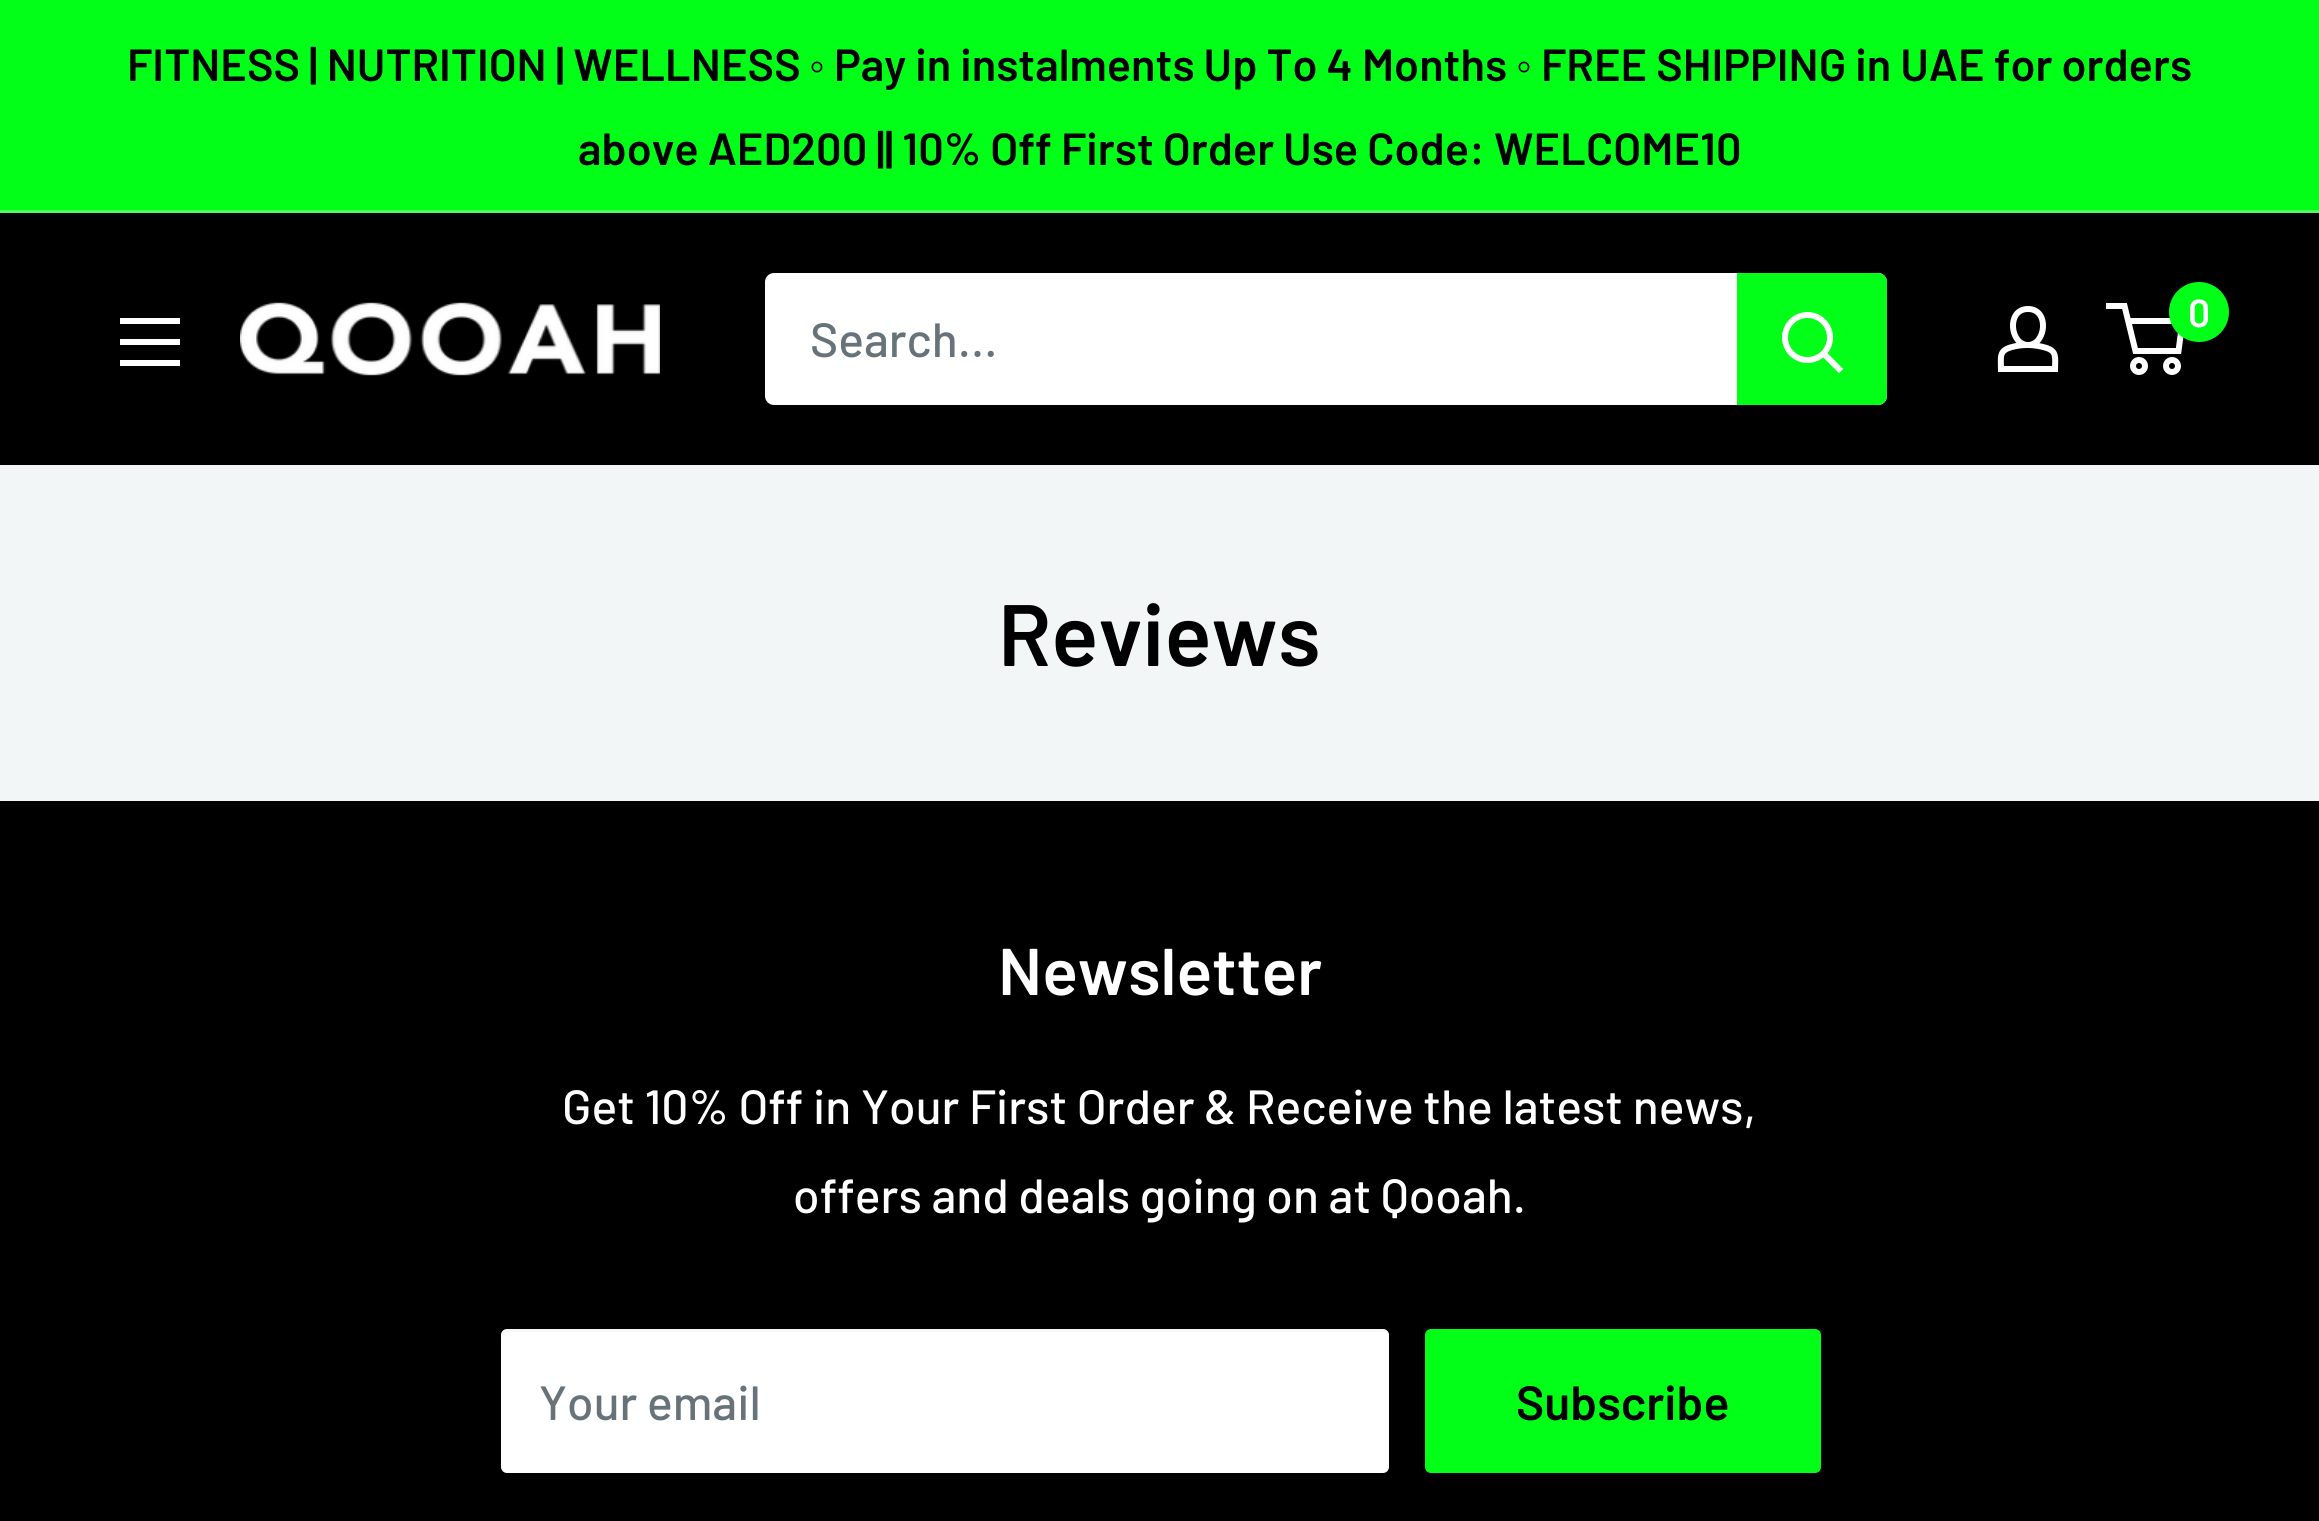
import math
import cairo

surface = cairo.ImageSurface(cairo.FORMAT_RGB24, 2319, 1521)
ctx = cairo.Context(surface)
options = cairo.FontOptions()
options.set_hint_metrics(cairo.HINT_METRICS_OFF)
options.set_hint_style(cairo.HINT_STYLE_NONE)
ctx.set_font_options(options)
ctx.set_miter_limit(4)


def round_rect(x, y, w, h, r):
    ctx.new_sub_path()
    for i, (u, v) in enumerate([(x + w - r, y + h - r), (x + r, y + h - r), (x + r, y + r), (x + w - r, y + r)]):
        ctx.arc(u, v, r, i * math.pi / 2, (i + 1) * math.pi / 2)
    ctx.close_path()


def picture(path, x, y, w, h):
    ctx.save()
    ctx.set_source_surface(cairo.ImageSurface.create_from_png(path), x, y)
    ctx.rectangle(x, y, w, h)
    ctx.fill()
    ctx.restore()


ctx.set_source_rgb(0.953, 0.961, 0.965)
ctx.paint()
ctx.set_source_rgb(0.004, 1, 0.09)
ctx.rectangle(0, 0, 2319, 210)
ctx.fill()
ctx.set_source_rgb(0.302, 1, 0.365)
ctx.rectangle(0, 210, 2319, 3)
ctx.fill()
ctx.select_font_face("Barlow SemiBold")
ctx.set_font_size(45)
ctx.set_source_rgb(0, 0, 0)
ctx.move_to(127, 81)
ctx.show_text("FITNESS | NUTRITION | WELLNESS")
ctx.select_font_face("Liberation Sans", cairo.FONT_SLANT_NORMAL, cairo.FONT_WEIGHT_BOLD)
ctx.move_to(809, 81)
ctx.show_text("◦")
ctx.select_font_face("Barlow SemiBold")
ctx.move_to(834, 81)
ctx.show_text("Pay in instalments Up To 4 Months")
ctx.select_font_face("Liberation Sans", cairo.FONT_SLANT_NORMAL, cairo.FONT_WEIGHT_BOLD)
ctx.move_to(1516, 81)
ctx.show_text("◦")
ctx.select_font_face("Barlow SemiBold")
ctx.move_to(1541, 81)
ctx.show_text("FREE SHIPPING in UAE for orders")
ctx.move_to(578, 165)
ctx.show_text("above AED200 || 10% Off First Order Use Code: WELCOME10")
ctx.rectangle(0, 213, 2319, 252)
ctx.fill()
ctx.set_source_rgb(1, 1, 1)
ctx.set_fill_rule(cairo.FILL_RULE_EVEN_ODD)
ctx.new_path()
ctx.move_to(120, 360)
ctx.line_to(180, 360)
ctx.line_to(180, 366)
ctx.line_to(120, 366)
ctx.close_path()
ctx.move_to(120, 318)
ctx.line_to(180, 318)
ctx.line_to(180, 324)
ctx.line_to(120, 324)
ctx.close_path()
ctx.move_to(120, 339)
ctx.line_to(180, 339)
ctx.line_to(180, 345)
ctx.line_to(120, 345)
ctx.close_path()
ctx.fill()
picture("img1.png", 240, 302, 420, 74)
round_rect(765, 273, 1122, 132, 9)
ctx.fill()
ctx.select_font_face("Barlow Medium")
ctx.set_font_size(48)
ctx.set_source_rgb(0.404, 0.447, 0.475)
ctx.move_to(810, 357)
ctx.show_text("Search...")
ctx.set_source_rgb(0.004, 1, 0.09)
ctx.new_path()
ctx.move_to(1737, 273)
ctx.line_to(1878, 273)
ctx.curve_to(1883, 273, 1887, 277, 1887, 282)
ctx.line_to(1887, 396)
ctx.curve_to(1887, 401, 1883, 405, 1878, 405)
ctx.line_to(1737, 405)
ctx.close_path()
ctx.fill()
ctx.new_path()
ctx.move_to(1839, 369)
ctx.line_to(1824, 354)
ctx.set_source_rgb(1, 1, 1)
ctx.set_line_width(6)
ctx.set_line_cap(cairo.LINE_CAP_SQUARE)
ctx.stroke()
ctx.arc(1807.5, 337.5, 22.5, 0, 2 * math.pi)
ctx.set_line_cap(cairo.LINE_CAP_BUTT)
ctx.stroke()
ctx.new_path()
ctx.move_to(2028, 345)
ctx.curve_to(2033.5, 345, 2039.5, 346, 2045, 347.5)
ctx.curve_to(2057.5, 351, 2055, 357.5, 2055, 369)
ctx.line_to(2001, 369)
ctx.curve_to(2001, 357, 1998.5, 350.5, 2012, 347)
ctx.curve_to(2017.5, 345.5, 2022.5, 345, 2028, 345)
ctx.close_path()
ctx.move_to(2028, 345)
ctx.curve_to(2010, 345, 2006, 309, 2028, 309)
ctx.curve_to(2050, 309, 2046, 345, 2028, 345)
ctx.close_path()
ctx.stroke()
ctx.arc(2139, 366, 6, 0, 2 * math.pi)
ctx.stroke()
ctx.arc(2172, 366, 6, 0, 2 * math.pi)
ctx.stroke()
ctx.new_path()
ctx.move_to(2128, 321)
ctx.line_to(2182.5, 321)
ctx.line_to(2178.5, 351)
ctx.line_to(2135.5, 351)
ctx.line_to(2124.5, 306)
ctx.line_to(2106, 306)
ctx.stroke()
ctx.set_source_rgb(0.004, 1, 0.09)
ctx.arc(2199, 312, 30, 0, 2 * math.pi)
ctx.fill()
ctx.select_font_face("Barlow SemiBold")
ctx.set_font_size(39)
ctx.set_source_rgb(1, 1, 1)
ctx.move_to(2188, 327)
ctx.show_text("0")
ctx.set_font_size(87)
ctx.set_source_rgb(0, 0, 0)
ctx.move_to(998, 666)
ctx.show_text("Reviews")
ctx.rectangle(0, 801, 2319, 720)
ctx.fill()
ctx.set_font_size(66)
ctx.set_source_rgb(1, 1, 1)
ctx.move_to(998, 995)
ctx.show_text("Newsletter")
ctx.select_font_face("Barlow Medium")
ctx.set_font_size(48)
ctx.move_to(562, 1124)
ctx.show_text("Get 10% Off in Your First Order & Receive the latest news,")
ctx.move_to(793, 1213)
ctx.show_text("offers and deals going on at Qooah.")
round_rect(501, 1329, 888, 144, 6)
ctx.fill()
ctx.set_source_rgba(0.882, 0.89, 0.894, 0.25)
ctx.set_fill_rule(cairo.FILL_RULE_WINDING)
ctx.new_path()
ctx.move_to(507, 1332)
ctx.line_to(1383, 1332)
ctx.curve_to(1386, 1332, 1389, 1335, 1389, 1338)
ctx.line_to(1389, 1335)
ctx.curve_to(1389, 1332, 1386, 1329, 1383, 1329)
ctx.line_to(507, 1329)
ctx.curve_to(504, 1329, 501, 1332, 501, 1335)
ctx.line_to(501, 1338)
ctx.curve_to(501, 1335, 504, 1332, 507, 1332)
ctx.close_path()
ctx.fill()
ctx.set_source_rgb(0.404, 0.447, 0.475)
ctx.move_to(539, 1420)
ctx.show_text("Your email")
ctx.set_source_rgb(0.004, 1, 0.09)
round_rect(1425, 1329, 396, 144, 6)
ctx.fill()
ctx.select_font_face("Barlow SemiBold")
ctx.set_source_rgb(0, 0, 0)
ctx.move_to(1516, 1420)
ctx.show_text("Subscribe")
surface.write_to_png("page.png")
